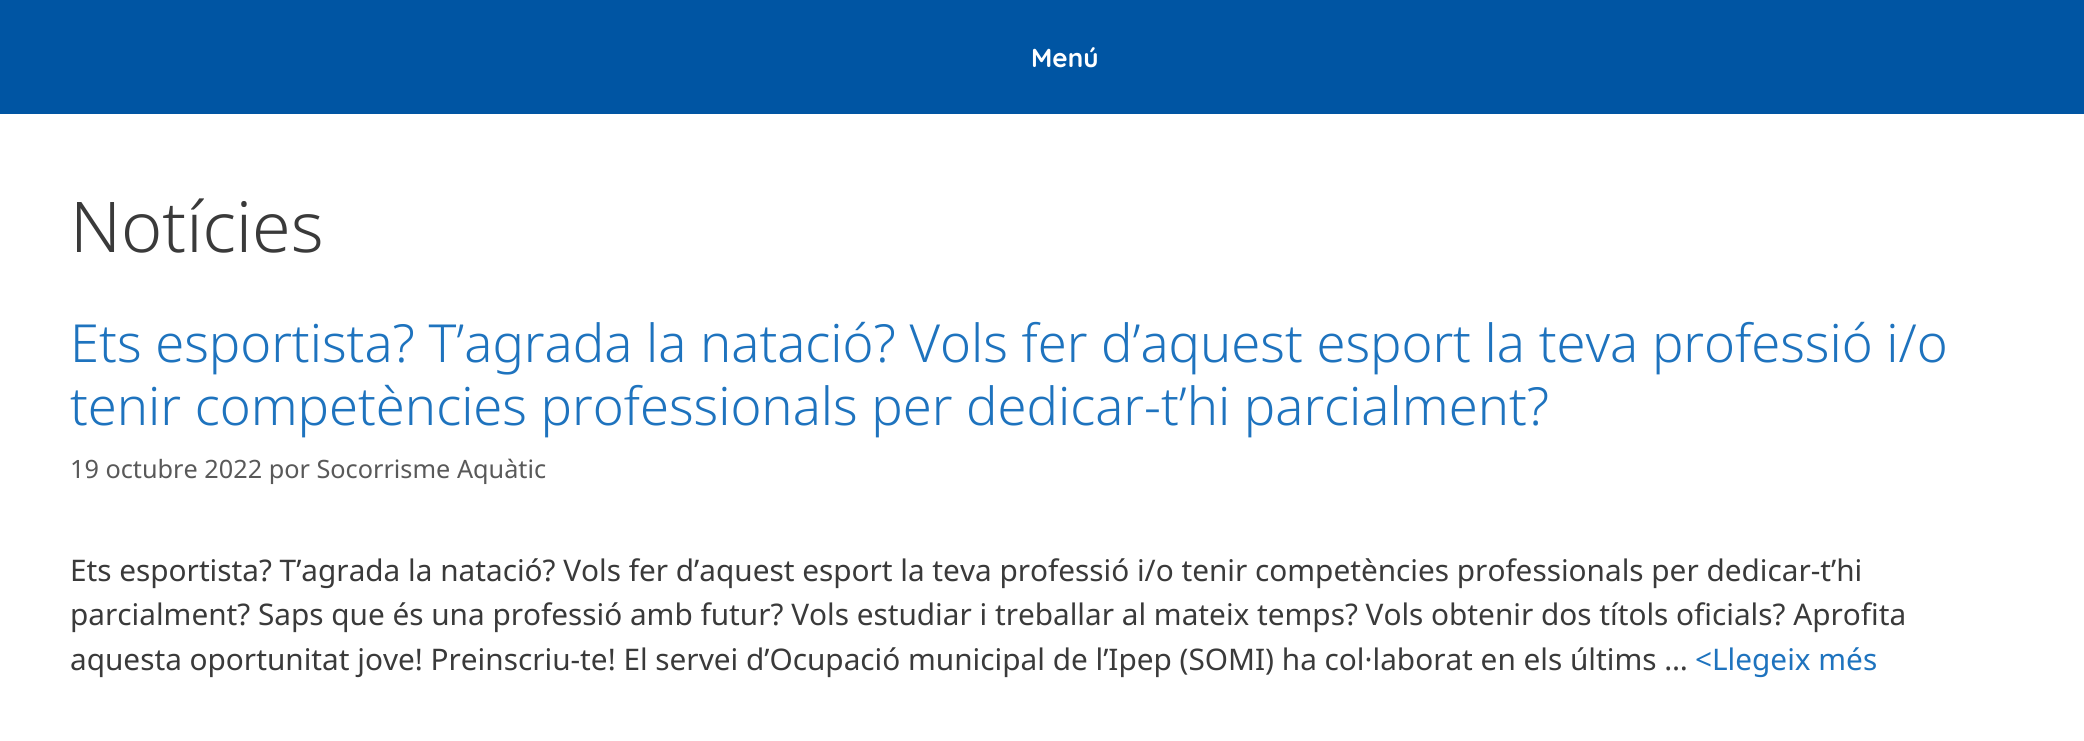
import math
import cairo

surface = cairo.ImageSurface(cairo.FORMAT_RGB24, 2084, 741)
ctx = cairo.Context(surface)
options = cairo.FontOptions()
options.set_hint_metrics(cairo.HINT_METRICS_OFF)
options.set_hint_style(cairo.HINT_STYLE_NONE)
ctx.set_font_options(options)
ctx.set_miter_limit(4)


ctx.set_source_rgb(1, 1, 1)
ctx.paint()
ctx.set_source_rgb(0, 0.333, 0.639)
ctx.rectangle(0, 0, 2084, 114)
ctx.fill()
ctx.select_font_face("Quicksand", cairo.FONT_SLANT_NORMAL, cairo.FONT_WEIGHT_BOLD)
ctx.set_font_size(26)
ctx.set_source_rgb(1, 1, 1)
ctx.move_to(1031, 67)
ctx.show_text("Menú")
ctx.select_font_face("Noto Sans Light")
ctx.set_font_size(70)
ctx.set_source_rgb(0.227, 0.227, 0.227)
ctx.move_to(70, 252)
ctx.show_text("Notícies")
ctx.set_font_size(52.5)
ctx.set_source_rgb(0.118, 0.451, 0.745)
ctx.move_to(70, 362)
ctx.show_text("Ets esportista? T’agrada la natació? Vols fer d’aquest esport la teva professió i/o")
ctx.move_to(70, 425)
ctx.show_text("tenir competències professionals per dedicar-t’hi parcialment?")
ctx.select_font_face("Noto Sans")
ctx.set_font_size(25.25)
ctx.set_source_rgb(0.349, 0.349, 0.349)
ctx.move_to(70, 478)
ctx.show_text("19 octubre 2022 por Socorrisme Aquàtic")
ctx.set_font_size(29.75)
ctx.set_source_rgb(0.227, 0.227, 0.227)
ctx.move_to(70, 581)
ctx.show_text("Ets esportista? T’agrada la natació? Vols fer d’aquest esport la teva professió i/o tenir competències professionals per dedicar-t’hi")
ctx.move_to(70, 625)
ctx.show_text("parcialment? Saps que és una professió amb futur? Vols estudiar i treballar al mateix temps? Vols obtenir dos títols oficials? Aprofita")
ctx.move_to(70, 670)
ctx.show_text("aquesta oportunitat jove! Preinscriu-te! El servei d’Ocupació municipal de l’Ipep (SOMI) ha col·laborat en els últims …")
ctx.set_source_rgb(0.118, 0.451, 0.745)
ctx.move_to(1695, 670)
ctx.show_text("<Llegeix més")
surface.write_to_png("page.png")
